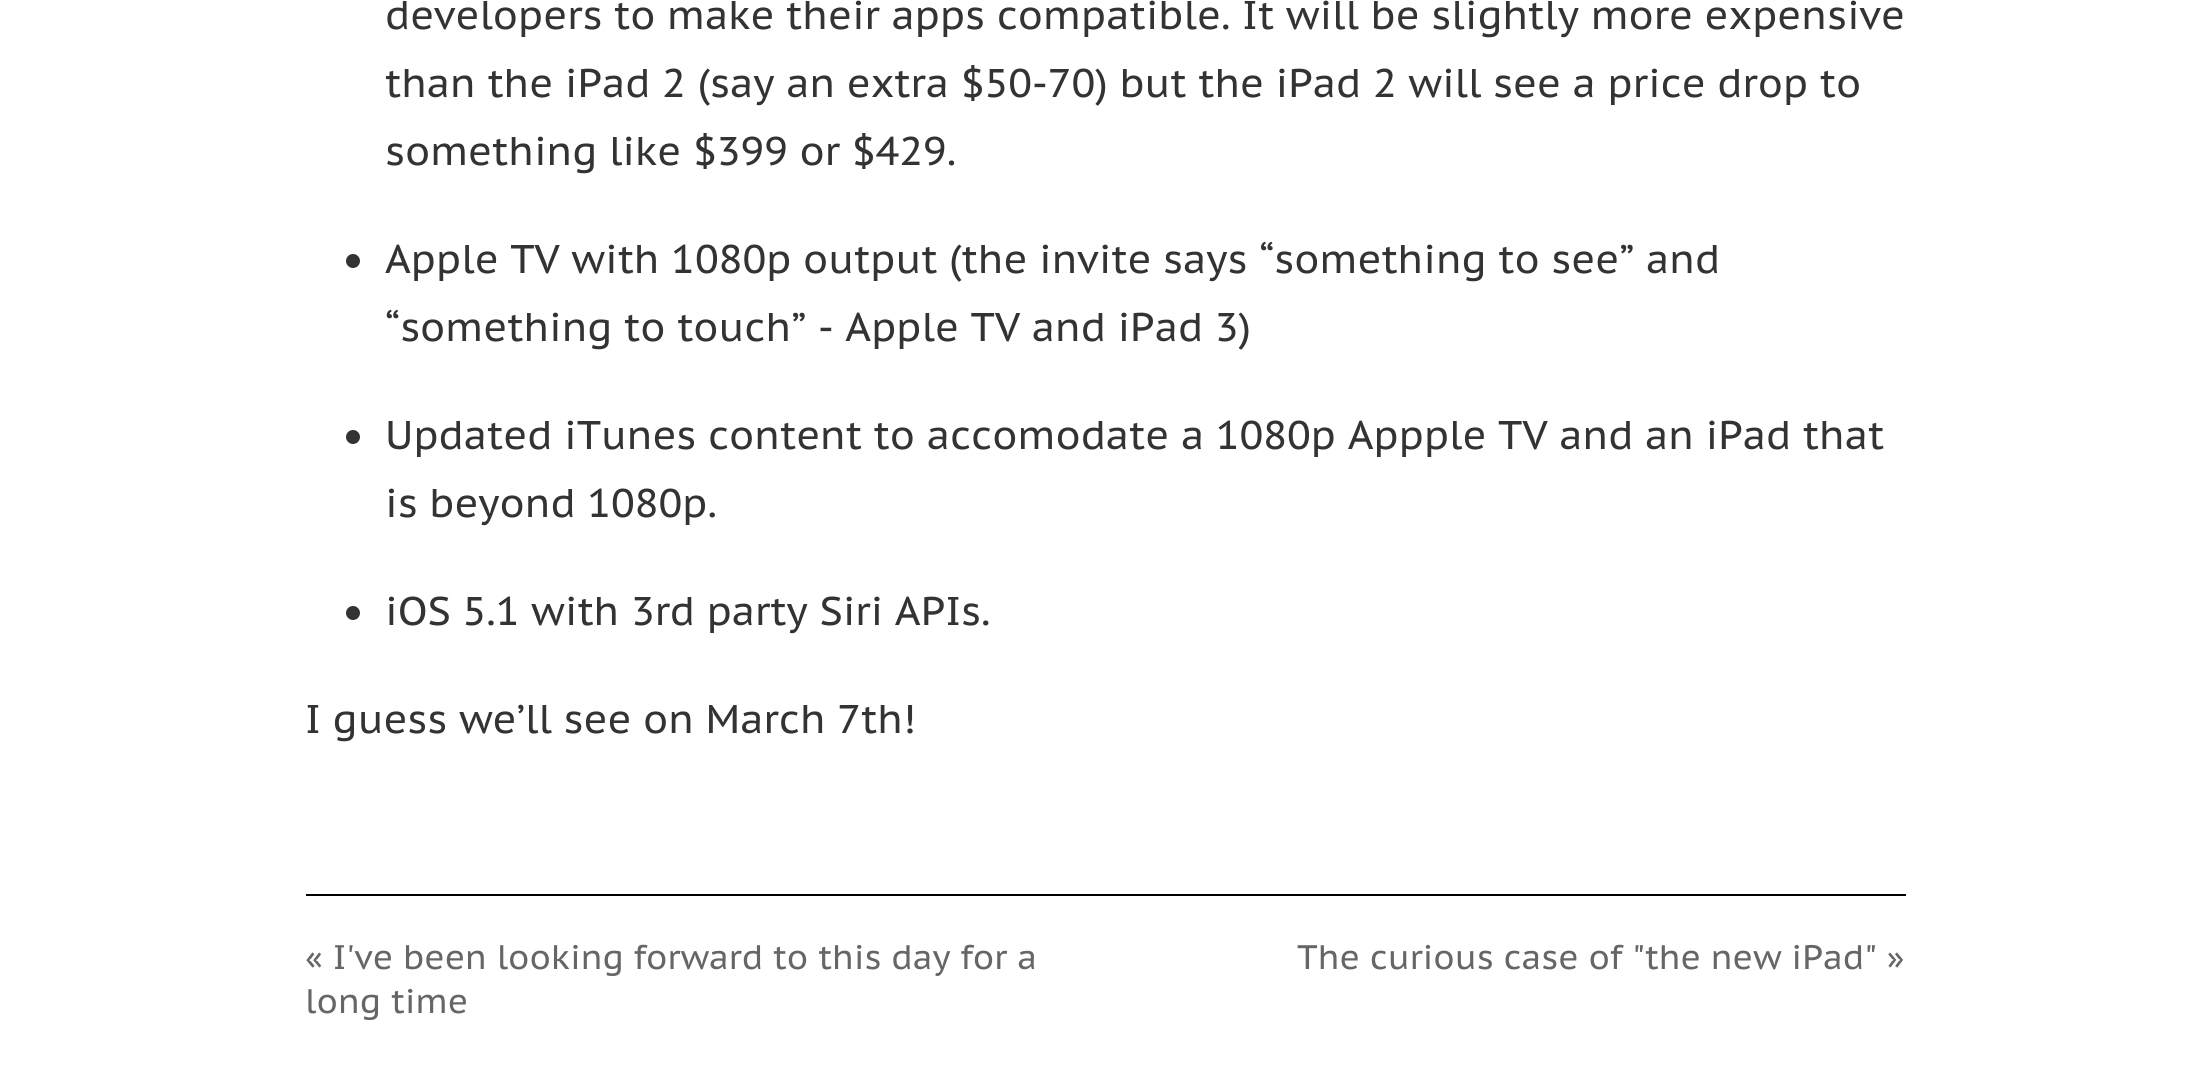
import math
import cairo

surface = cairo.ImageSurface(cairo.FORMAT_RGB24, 2209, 1091)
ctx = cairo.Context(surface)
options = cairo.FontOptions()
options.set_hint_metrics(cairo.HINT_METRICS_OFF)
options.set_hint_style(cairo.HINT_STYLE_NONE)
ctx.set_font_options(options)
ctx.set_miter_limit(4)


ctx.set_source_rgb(1, 1, 1)
ctx.paint()
ctx.set_source_rgb(0, 0, 0)
ctx.rectangle(306, 894, 1600, 2)
ctx.fill()
ctx.select_font_face("PT Sans Caption")
ctx.set_font_size(40)
ctx.set_source_rgb(0.2, 0.2, 0.2)
ctx.move_to(385, 29)
ctx.show_text("developers to make their apps compatible. It will be slightly more expensive")
ctx.move_to(385, 97)
ctx.show_text("than the iPad 2 (say an extra $50-70) but the iPad 2 will see a price drop to")
ctx.move_to(385, 165)
ctx.show_text("something like $399 or $429.")
ctx.new_path()
ctx.arc(353, 261, 7, 0, 2 * math.pi)
ctx.fill()
ctx.move_to(385, 273)
ctx.show_text("Apple TV with 1080p output (the invite says “something to see” and")
ctx.move_to(385, 341)
ctx.show_text("“something to touch” - Apple TV and iPad 3)")
ctx.new_path()
ctx.arc(353, 437, 7, 0, 2 * math.pi)
ctx.fill()
ctx.move_to(385, 449)
ctx.show_text("Updated iTunes content to accomodate a 1080p Appple TV and an iPad that")
ctx.move_to(385, 517)
ctx.show_text("is beyond 1080p.")
ctx.new_path()
ctx.arc(353, 613, 7, 0, 2 * math.pi)
ctx.fill()
ctx.move_to(385, 625)
ctx.show_text("iOS 5.1 with 3rd party Siri APIs.")
ctx.move_to(305, 733)
ctx.show_text("I guess we’ll see on March 7th!")
ctx.set_font_size(34)
ctx.set_source_rgb(0.4, 0.4, 0.4)
ctx.move_to(305, 969)
ctx.show_text("« I've been looking forward to this day for a")
ctx.move_to(305, 1013)
ctx.show_text("long time")
ctx.move_to(1297, 969)
ctx.show_text("The curious case of \"the new iPad\" »")
surface.write_to_png("page.png")
